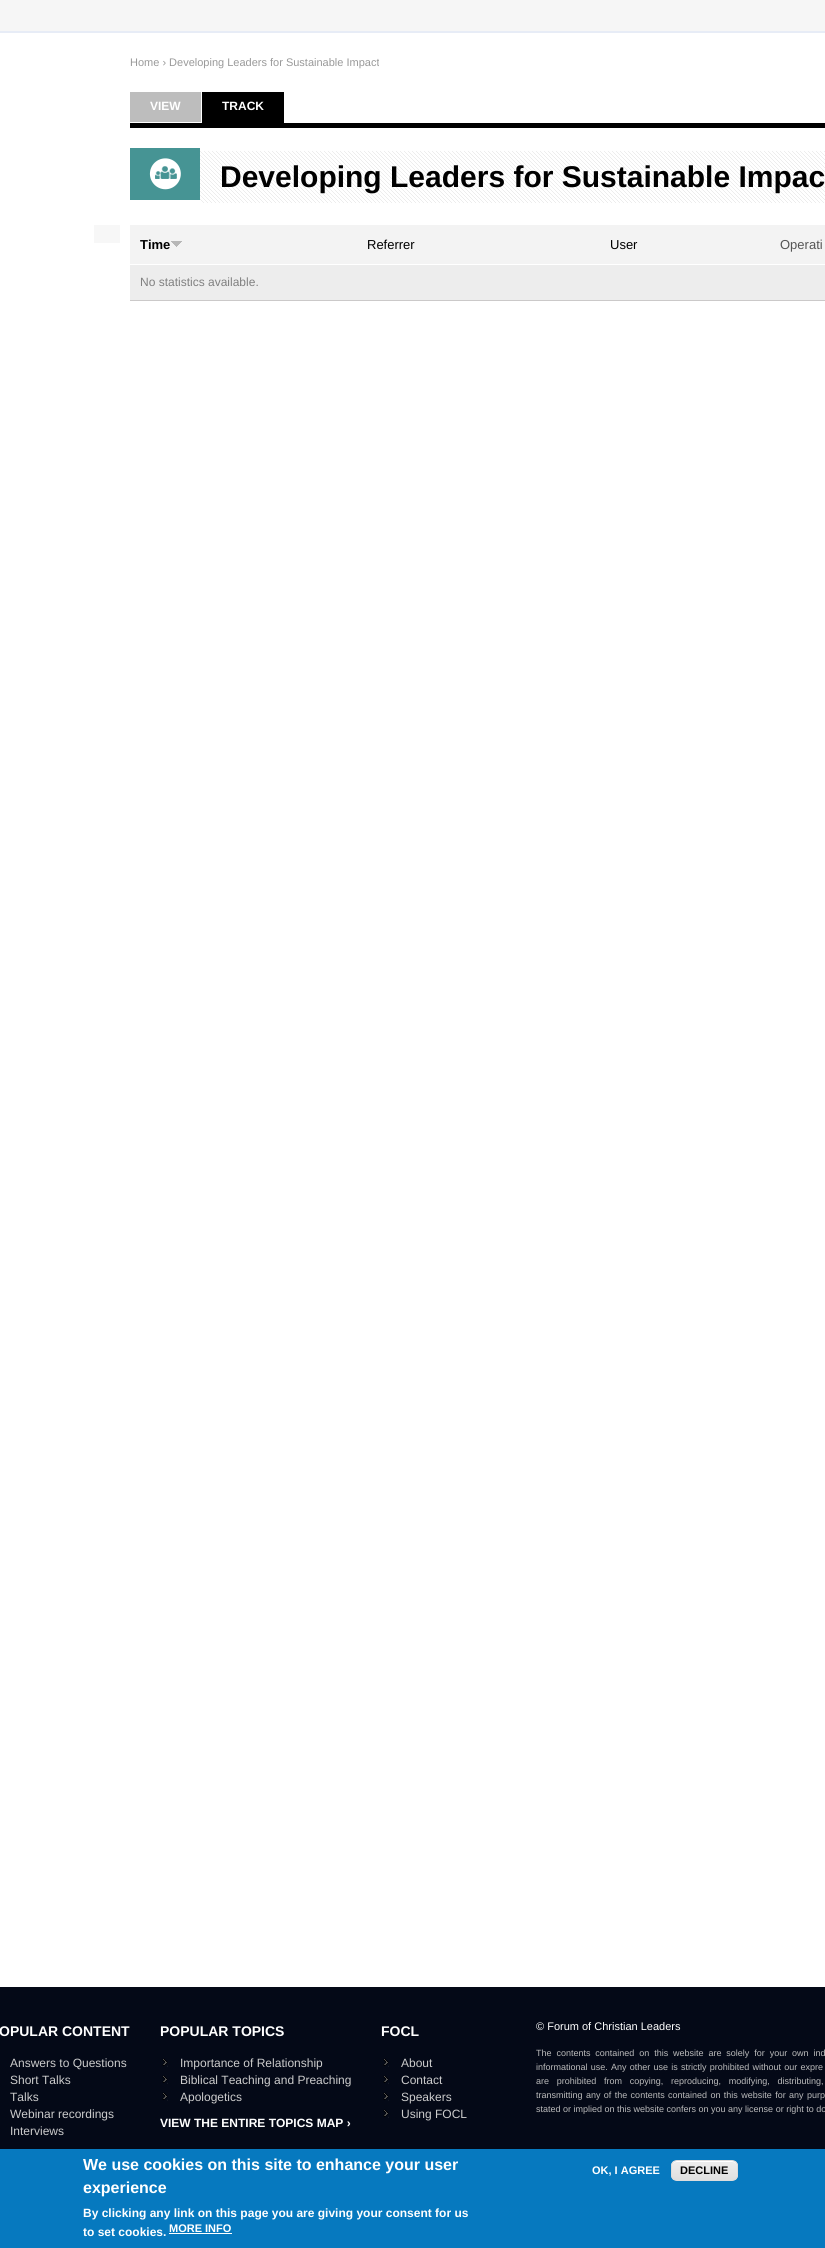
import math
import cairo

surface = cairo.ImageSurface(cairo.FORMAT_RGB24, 825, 2248)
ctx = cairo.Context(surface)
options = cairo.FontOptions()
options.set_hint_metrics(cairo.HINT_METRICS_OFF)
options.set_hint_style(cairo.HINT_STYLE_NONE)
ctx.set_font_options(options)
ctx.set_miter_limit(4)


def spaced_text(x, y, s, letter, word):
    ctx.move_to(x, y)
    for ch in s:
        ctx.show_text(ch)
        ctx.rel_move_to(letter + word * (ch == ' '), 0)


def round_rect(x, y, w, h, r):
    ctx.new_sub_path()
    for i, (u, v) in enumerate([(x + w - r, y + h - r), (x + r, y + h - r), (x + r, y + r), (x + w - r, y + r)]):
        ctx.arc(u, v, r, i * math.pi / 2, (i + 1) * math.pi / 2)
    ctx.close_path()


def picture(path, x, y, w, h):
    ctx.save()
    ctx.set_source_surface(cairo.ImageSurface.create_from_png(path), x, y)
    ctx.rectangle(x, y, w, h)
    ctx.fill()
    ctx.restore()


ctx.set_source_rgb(1, 1, 1)
ctx.paint()
ctx.set_source_rgb(0.961, 0.961, 0.961)
ctx.rectangle(0, 0, 825, 31)
ctx.fill()
ctx.set_source_rgb(0.906, 0.925, 0.961)
ctx.rectangle(0, 31, 825, 2)
ctx.fill()
ctx.set_source_rgb(0.965, 0.965, 0.965)
ctx.rectangle(94, 225, 26, 18)
ctx.fill()
ctx.select_font_face("Liberation Sans")
ctx.set_font_size(11)
ctx.set_source_rgb(0.6, 0.6, 0.6)
ctx.move_to(130, 66)
ctx.show_text("Home › Developing Leaders for Sustainable Impact")
ctx.set_source_rgb(0, 0, 0)
ctx.rectangle(130, 123, 695, 5)
ctx.fill()
ctx.set_source_rgb(0.741, 0.741, 0.741)
ctx.rectangle(130, 92, 71, 30)
ctx.fill()
ctx.select_font_face("Liberation Sans", cairo.FONT_SLANT_NORMAL, cairo.FONT_WEIGHT_BOLD)
ctx.set_font_size(12)
ctx.set_source_rgb(1, 1, 1)
ctx.move_to(150, 110)
ctx.show_text("VIEW")
ctx.set_source_rgb(0, 0, 0)
ctx.rectangle(202, 92, 82, 31)
ctx.fill()
ctx.set_source_rgb(1, 1, 1)
ctx.move_to(222, 110)
ctx.show_text("TRACK")
picture("img1.png", 130, 148, 70, 52)
picture("img2.png", 200, 151, 625, 52)
ctx.set_font_size(30)
ctx.set_source_rgb(0, 0, 0)
ctx.move_to(220, 187)
ctx.show_text("Developing Leaders for Sustainable Impac")
ctx.set_source_rgb(0.953, 0.953, 0.953)
ctx.rectangle(130, 225, 695, 39)
ctx.fill()
ctx.set_font_size(13)
ctx.set_source_rgb(0, 0, 0)
ctx.move_to(140, 249)
ctx.show_text("Time")
picture("img3.png", 171, 241, 11, 6)
ctx.select_font_face("Liberation Sans")
ctx.move_to(367, 249)
ctx.show_text("Referrer")
ctx.move_to(610, 249)
ctx.show_text("User")
ctx.set_source_rgb(0.333, 0.333, 0.333)
ctx.move_to(780, 249)
ctx.show_text("Operati")
ctx.set_source_rgb(0.929, 0.929, 0.929)
ctx.rectangle(130, 265, 695, 35)
ctx.fill()
ctx.set_source_rgb(0.796, 0.788, 0.788)
ctx.rectangle(130, 300, 695, 1)
ctx.fill()
ctx.set_font_size(12)
ctx.set_source_rgb(0.502, 0.502, 0.502)
ctx.move_to(140, 286)
ctx.show_text("No statistics available.")
ctx.set_source_rgb(0.016, 0.039, 0.09)
ctx.rectangle(0, 1987, 825, 162)
ctx.fill()
ctx.select_font_face("Liberation Sans", cairo.FONT_SLANT_NORMAL, cairo.FONT_WEIGHT_BOLD)
ctx.set_font_size(14)
ctx.set_source_rgb(1, 1, 1)
ctx.move_to(-1, 2036)
ctx.show_text("OPULAR CONTENT")
ctx.select_font_face("Liberation Sans")
ctx.set_font_size(12)
ctx.set_source_rgb(0.8, 0.8, 0.8)
ctx.move_to(10, 2067)
ctx.show_text("Answers to Questions")
ctx.move_to(10, 2084)
ctx.show_text("Short Talks")
ctx.move_to(10, 2101)
ctx.show_text("Talks")
ctx.move_to(10, 2118)
ctx.show_text("Webinar recordings")
ctx.move_to(10, 2135)
ctx.show_text("Interviews")
ctx.select_font_face("Liberation Sans", cairo.FONT_SLANT_NORMAL, cairo.FONT_WEIGHT_BOLD)
ctx.set_font_size(14)
ctx.set_source_rgb(1, 1, 1)
ctx.move_to(160, 2036)
ctx.show_text("POPULAR TOPICS")
picture("img4.png", 162, 2058, 6, 9)
ctx.select_font_face("Liberation Sans")
ctx.set_font_size(12)
ctx.set_source_rgb(0.8, 0.8, 0.8)
ctx.move_to(180, 2067)
ctx.show_text("Importance of Relationship")
picture("img4.png", 162, 2075, 6, 9)
ctx.move_to(180, 2084)
ctx.show_text("Biblical Teaching and Preaching")
picture("img4.png", 162, 2092, 6, 9)
ctx.move_to(180, 2101)
ctx.show_text("Apologetics")
ctx.select_font_face("Liberation Sans", cairo.FONT_SLANT_NORMAL, cairo.FONT_WEIGHT_BOLD)
ctx.set_source_rgb(1, 1, 1)
ctx.move_to(160, 2127)
ctx.show_text("VIEW THE ENTIRE TOPICS MAP ›")
ctx.set_font_size(14)
ctx.move_to(381, 2036)
ctx.show_text("FOCL")
picture("img4.png", 383, 2058, 6, 9)
ctx.select_font_face("Liberation Sans")
ctx.set_font_size(12)
ctx.set_source_rgb(0.8, 0.8, 0.8)
ctx.move_to(401, 2067)
ctx.show_text("About")
picture("img4.png", 383, 2075, 6, 9)
ctx.move_to(401, 2084)
ctx.show_text("Contact")
picture("img4.png", 383, 2092, 6, 9)
ctx.move_to(401, 2101)
ctx.show_text("Speakers")
picture("img4.png", 383, 2109, 6, 9)
ctx.move_to(401, 2118)
ctx.show_text("Using FOCL")
ctx.set_font_size(11)
ctx.set_source_rgb(1, 1, 1)
ctx.move_to(536, 2030)
ctx.show_text("© Forum of Christian Leaders")
ctx.set_font_size(9)
ctx.set_source_rgb(0.733, 0.733, 0.733)
spaced_text(536, 2056, "The contents contained on this website are solely for your own ind", 0, 2.4)
spaced_text(536, 2070, "informational use. Any other use is strictly prohibited without our expre", 0, 0.75)
spaced_text(536, 2084, "are prohibited from copying, reproducing, modifying, distributing,", 0, 5.25)
spaced_text(536, 2098, "transmitting any of the contents contained on this website for any purp", 0, 0.9)
ctx.move_to(536, 2112)
ctx.show_text("stated or implied on this website confers on you any license or right to do")
ctx.set_source_rgb(0.027, 0.475, 0.749)
ctx.rectangle(0, 2149, 825, 99)
ctx.fill()
ctx.select_font_face("Liberation Sans", cairo.FONT_SLANT_NORMAL, cairo.FONT_WEIGHT_BOLD)
ctx.set_font_size(16)
ctx.set_source_rgb(1, 1, 1)
ctx.move_to(83, 2170)
ctx.show_text("We use cookies on this site to enhance your user")
ctx.move_to(83, 2193)
ctx.show_text("experience")
ctx.set_font_size(12)
ctx.move_to(83, 2217)
ctx.show_text("By clicking any link on this page you are giving your consent for us")
ctx.move_to(83, 2236)
ctx.show_text("to set cookies.")
ctx.set_font_size(11)
ctx.move_to(169, 2232)
ctx.show_text("MORE INFO")
ctx.rectangle(169, 2233, 63, 1)
ctx.fill()
ctx.move_to(592, 2174)
ctx.show_text("OK, I AGREE")
ctx.save()
round_rect(671, 2160, 67, 21, 6)
ctx.clip()
gradient = cairo.LinearGradient(705, 2161, 705, 2180)
gradient.add_color_stop_rgba(0.05, 0.929, 0.929, 0.929, 1)
gradient.add_color_stop_rgba(1, 0.875, 0.875, 0.875, 1)
ctx.set_source(gradient)
ctx.rectangle(671, 2161, 67, 19)
ctx.fill()
ctx.restore()
ctx.new_path()
ctx.move_to(677, 2162)
ctx.line_to(732, 2162)
ctx.curve_to(735, 2162, 737, 2164, 737, 2167)
ctx.curve_to(737, 2159, 729, 2161, 723, 2161)
ctx.line_to(686, 2161)
ctx.curve_to(680, 2161, 672, 2159, 672, 2167)
ctx.curve_to(672, 2164, 674, 2162, 677, 2162)
ctx.close_path()
ctx.fill()
round_rect(671.5, 2160.5, 66, 20, 5.5)
ctx.set_source_rgb(0.863, 0.863, 0.863)
ctx.set_line_width(1)
ctx.stroke()
ctx.set_source_rgb(0, 0, 0)
ctx.move_to(680, 2174)
ctx.show_text("DECLINE")
surface.write_to_png("page.png")
